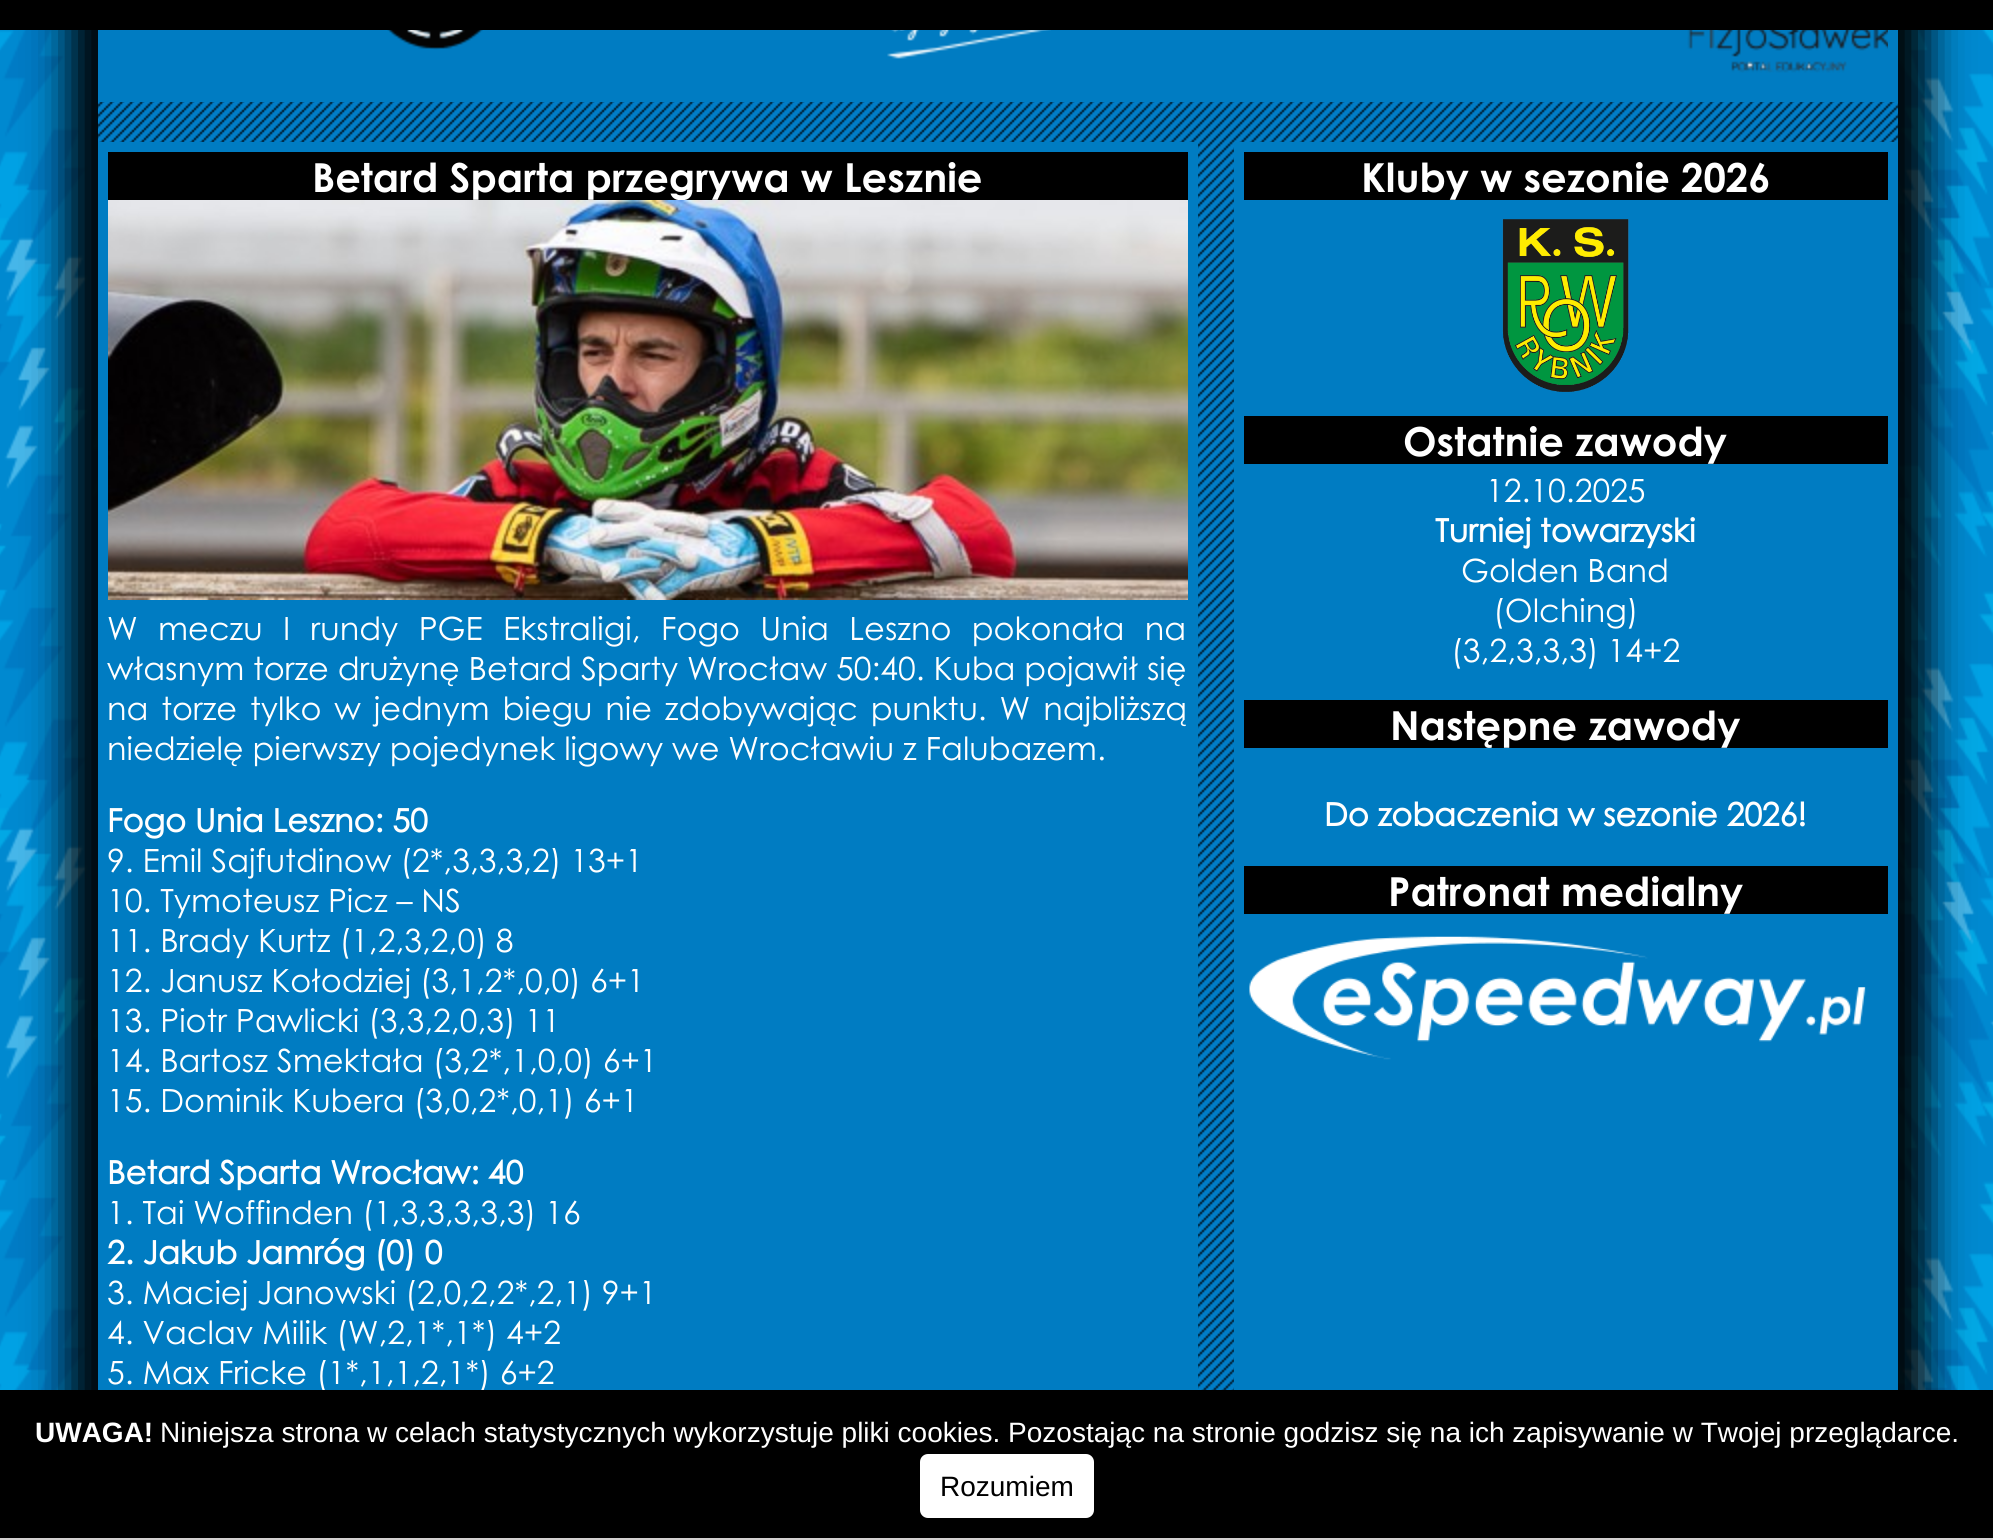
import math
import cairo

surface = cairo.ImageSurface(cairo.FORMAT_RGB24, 1993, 1540)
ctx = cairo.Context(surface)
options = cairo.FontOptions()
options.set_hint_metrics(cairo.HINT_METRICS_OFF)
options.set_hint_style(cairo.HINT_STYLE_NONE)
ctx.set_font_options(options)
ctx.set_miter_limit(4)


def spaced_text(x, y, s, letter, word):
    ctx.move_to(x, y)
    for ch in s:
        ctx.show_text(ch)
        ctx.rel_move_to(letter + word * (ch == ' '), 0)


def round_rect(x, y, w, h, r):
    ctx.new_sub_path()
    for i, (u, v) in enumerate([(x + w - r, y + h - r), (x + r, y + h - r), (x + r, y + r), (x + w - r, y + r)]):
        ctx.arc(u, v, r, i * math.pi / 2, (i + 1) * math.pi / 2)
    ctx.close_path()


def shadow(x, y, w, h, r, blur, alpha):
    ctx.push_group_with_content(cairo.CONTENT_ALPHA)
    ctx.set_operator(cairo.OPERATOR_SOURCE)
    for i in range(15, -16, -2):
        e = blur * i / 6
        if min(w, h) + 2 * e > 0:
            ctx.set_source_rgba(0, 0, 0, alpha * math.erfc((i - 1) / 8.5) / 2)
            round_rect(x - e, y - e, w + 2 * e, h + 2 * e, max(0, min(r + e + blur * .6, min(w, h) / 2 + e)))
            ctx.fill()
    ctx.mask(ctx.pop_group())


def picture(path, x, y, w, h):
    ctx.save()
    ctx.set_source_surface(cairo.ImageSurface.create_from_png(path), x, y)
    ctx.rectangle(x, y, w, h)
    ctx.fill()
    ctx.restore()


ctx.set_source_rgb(1, 1, 1)
ctx.paint()
picture("img1.png", 0, 30, 1993, 1360)
ctx.set_source_rgb(0, 0, 0)
shadow(68, -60, 1860, 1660, 0, 20, 1)
ctx.set_source_rgb(0, 0, 0)
ctx.rectangle(0, 0, 1993, 30)
ctx.fill()
picture("img2.png", 98, 102, 1800, 1288)
ctx.set_source_rgb(0, 0.486, 0.761)
ctx.rectangle(98, 30, 1800, 72)
ctx.fill()
picture("img3.png", 387, 30, 96, 20)
picture("img4.png", 887, 30, 164, 29)
picture("img5.png", 1687, 30, 201, 43)
ctx.rectangle(98, 142, 1100, 1248)
ctx.fill()
ctx.set_source_rgb(0, 0, 0)
ctx.rectangle(108, 152, 1080, 48)
ctx.fill()
ctx.save()
ctx.rectangle(108, 152, 1080, 48)
ctx.clip()
ctx.select_font_face("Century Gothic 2", cairo.FONT_SLANT_NORMAL, cairo.FONT_WEIGHT_BOLD)
ctx.set_font_size(40)
ctx.set_source_rgb(1, 1, 1)
ctx.move_to(312, 192)
ctx.show_text("Betard Sparta przegrywa w Lesznie")
ctx.restore()
picture("img6.png", 108, 200, 1080, 400)
ctx.select_font_face("Century Gothic")
ctx.set_font_size(32)
ctx.set_source_rgb(1, 1, 1)
spaced_text(107, 640, "W meczu I rundy PGE Ekstraligi, Fogo Unia Leszno pokonała na", 0, 11.5)
ctx.move_to(107, 680)
ctx.show_text("własnym torze drużynę Betard Sparty Wrocław 50:40. Kuba pojawił się")
spaced_text(107, 720, "na torze tylko w jednym biegu nie zdobywając punktu. W najbliższą", 0, 4)
ctx.move_to(107, 760)
ctx.show_text("niedzielę pierwszy pojedynek ligowy we Wrocławiu z Falubazem.")
ctx.select_font_face("Century Gothic", cairo.FONT_SLANT_NORMAL, cairo.FONT_WEIGHT_BOLD)
ctx.move_to(107, 832)
ctx.show_text("Fogo Unia Leszno: 50")
ctx.select_font_face("Century Gothic")
ctx.move_to(107, 872)
ctx.show_text("9. Emil Sajfutdinow (2*,3,3,3,2) 13+1")
ctx.move_to(107, 912)
ctx.show_text("10. Tymoteusz Picz – NS")
ctx.move_to(107, 952)
ctx.show_text("11. Brady Kurtz (1,2,3,2,0) 8")
ctx.move_to(107, 992)
ctx.show_text("12. Janusz Kołodziej (3,1,2*,0,0) 6+1")
ctx.move_to(107, 1032)
ctx.show_text("13. Piotr Pawlicki (3,3,2,0,3) 11")
ctx.move_to(107, 1072)
ctx.show_text("14. Bartosz Smektała (3,2*,1,0,0) 6+1")
ctx.move_to(107, 1112)
ctx.show_text("15. Dominik Kubera (3,0,2*,0,1) 6+1")
ctx.select_font_face("Century Gothic", cairo.FONT_SLANT_NORMAL, cairo.FONT_WEIGHT_BOLD)
ctx.move_to(107, 1184)
ctx.show_text("Betard Sparta Wrocław: 40")
ctx.select_font_face("Century Gothic")
ctx.move_to(107, 1224)
ctx.show_text("1. Tai Woffinden (1,3,3,3,3,3) 16")
ctx.select_font_face("Century Gothic", cairo.FONT_SLANT_NORMAL, cairo.FONT_WEIGHT_BOLD)
ctx.move_to(107, 1264)
ctx.show_text("2. Jakub Jamróg (0) 0")
ctx.select_font_face("Century Gothic")
ctx.move_to(107, 1304)
ctx.show_text("3. Maciej Janowski (2,0,2,2*,2,1) 9+1")
ctx.move_to(107, 1344)
ctx.show_text("4. Vaclav Milik (W,2,1*,1*) 4+2")
ctx.move_to(107, 1384)
ctx.show_text("5. Max Fricke (1*,1,1,2,1*) 6+2")
ctx.set_source_rgb(0, 0.486, 0.761)
ctx.rectangle(1234, 142, 664, 1248)
ctx.fill()
ctx.set_source_rgb(0, 0, 0)
ctx.rectangle(1244, 152, 644, 48)
ctx.fill()
ctx.select_font_face("Century Gothic 2", cairo.FONT_SLANT_NORMAL, cairo.FONT_WEIGHT_BOLD)
ctx.set_font_size(40)
ctx.set_source_rgb(1, 1, 1)
ctx.move_to(1361, 192)
ctx.show_text("Kluby w sezonie 2026")
picture("img7.png", 1502, 219, 127, 173)
ctx.set_source_rgb(0, 0, 0)
ctx.rectangle(1244, 416, 644, 48)
ctx.fill()
ctx.set_source_rgb(1, 1, 1)
ctx.move_to(1403, 456)
ctx.show_text("Ostatnie zawody")
ctx.select_font_face("Century Gothic")
ctx.set_font_size(32)
ctx.move_to(1486, 502)
ctx.show_text("12.10.2025")
ctx.select_font_face("Century Gothic", cairo.FONT_SLANT_NORMAL, cairo.FONT_WEIGHT_BOLD)
ctx.move_to(1435, 542)
ctx.show_text("Turniej towarzyski")
ctx.select_font_face("Century Gothic")
ctx.move_to(1461, 582)
ctx.show_text("Golden Band")
ctx.move_to(1493, 622)
ctx.show_text("(Olching)")
ctx.move_to(1451, 662)
ctx.show_text("(3,2,3,3,3) 14+2")
ctx.set_source_rgb(0, 0, 0)
ctx.rectangle(1244, 700, 644, 48)
ctx.fill()
ctx.select_font_face("Century Gothic 2", cairo.FONT_SLANT_NORMAL, cairo.FONT_WEIGHT_BOLD)
ctx.set_font_size(40)
ctx.set_source_rgb(1, 1, 1)
ctx.move_to(1390, 740)
ctx.show_text("Następne zawody")
ctx.select_font_face("Century Gothic", cairo.FONT_SLANT_NORMAL, cairo.FONT_WEIGHT_BOLD)
ctx.set_font_size(32)
ctx.move_to(1324, 826)
ctx.show_text("Do zobaczenia w sezonie 2026!")
ctx.set_source_rgb(0, 0, 0)
ctx.rectangle(1244, 866, 644, 48)
ctx.fill()
ctx.select_font_face("Century Gothic 2", cairo.FONT_SLANT_NORMAL, cairo.FONT_WEIGHT_BOLD)
ctx.set_font_size(40)
ctx.set_source_rgb(1, 1, 1)
ctx.move_to(1388, 906)
ctx.show_text("Patronat medialny")
picture("img8.png", 1249, 936, 617, 124)
ctx.set_source_rgb(0, 0, 0)
ctx.rectangle(0, 1390, 1993, 148)
ctx.fill()
ctx.set_source_rgb(0.827, 0.816, 0.816)
ctx.rectangle(0, 1538, 1993, 2)
ctx.fill()
ctx.select_font_face("Liberation Sans", cairo.FONT_SLANT_NORMAL, cairo.FONT_WEIGHT_BOLD)
ctx.set_font_size(28)
ctx.set_source_rgb(1, 1, 1)
ctx.move_to(35, 1442)
ctx.show_text("UWAGA!")
ctx.select_font_face("Liberation Sans")
ctx.move_to(160, 1442)
ctx.show_text("Niniejsza strona w celach statystycznych wykorzystuje pliki cookies. Pozostając na stronie godzisz się na ich zapisywanie w Twojej przeglądarce.")
round_rect(920, 1454, 174, 64, 8)
ctx.fill()
ctx.set_source_rgb(0, 0, 0)
ctx.move_to(940, 1496)
ctx.show_text("Rozumiem")
surface.write_to_png("page.png")
